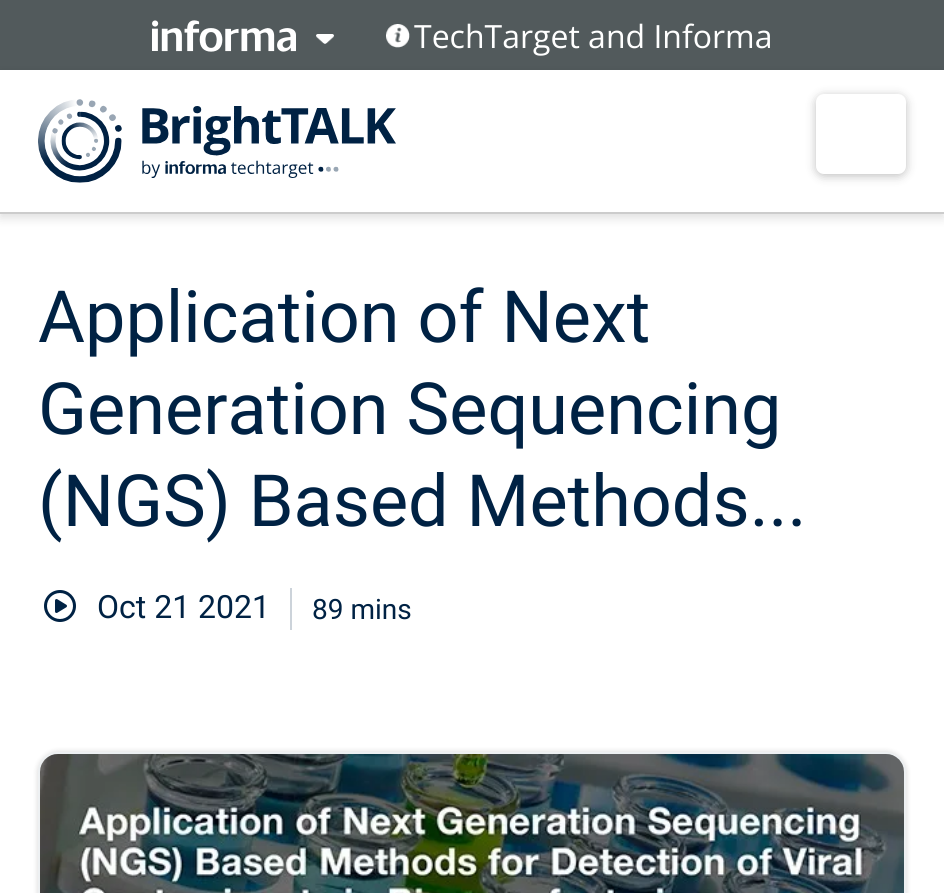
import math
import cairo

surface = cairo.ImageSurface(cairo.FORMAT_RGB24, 944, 893)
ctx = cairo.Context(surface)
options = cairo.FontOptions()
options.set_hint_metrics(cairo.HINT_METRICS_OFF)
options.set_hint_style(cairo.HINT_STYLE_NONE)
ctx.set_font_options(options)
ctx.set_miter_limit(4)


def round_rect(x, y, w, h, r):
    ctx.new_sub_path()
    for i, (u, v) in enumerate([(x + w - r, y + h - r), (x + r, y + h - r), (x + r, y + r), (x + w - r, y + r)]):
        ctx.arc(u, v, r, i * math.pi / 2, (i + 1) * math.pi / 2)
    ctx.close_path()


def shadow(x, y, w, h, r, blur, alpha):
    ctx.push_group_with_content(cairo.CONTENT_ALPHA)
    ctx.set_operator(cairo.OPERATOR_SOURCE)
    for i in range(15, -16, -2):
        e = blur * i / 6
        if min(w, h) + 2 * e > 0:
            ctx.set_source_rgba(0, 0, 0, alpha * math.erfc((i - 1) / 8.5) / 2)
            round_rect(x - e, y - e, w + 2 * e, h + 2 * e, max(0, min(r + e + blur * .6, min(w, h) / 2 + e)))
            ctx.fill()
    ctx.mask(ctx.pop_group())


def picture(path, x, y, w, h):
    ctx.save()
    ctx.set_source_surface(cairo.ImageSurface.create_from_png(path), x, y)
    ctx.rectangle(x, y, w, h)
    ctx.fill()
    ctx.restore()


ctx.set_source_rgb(1, 1, 1)
ctx.paint()
ctx.set_source_rgb(0.322, 0.353, 0.361)
ctx.rectangle(0, 0, 944, 70)
ctx.fill()
picture("img1.png", 152, 20, 144, 32)
picture("img2.png", 316, 34, 18, 10)
picture("img3.png", 386, 24, 24, 24)
ctx.select_font_face("Open Sans")
ctx.set_font_size(32)
ctx.set_source_rgb(1, 1, 1)
ctx.move_to(414, 48)
ctx.show_text("TechTarget and Informa")
ctx.save()
ctx.set_fill_rule(cairo.FILL_RULE_EVEN_ODD)
ctx.new_path()
ctx.move_to(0, 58)
ctx.line_to(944, 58)
ctx.line_to(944, 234)
ctx.line_to(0, 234)
ctx.close_path()
ctx.move_to(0, 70)
ctx.line_to(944, 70)
ctx.line_to(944, 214)
ctx.line_to(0, 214)
ctx.close_path()
ctx.clip()
ctx.set_source_rgb(0, 0, 0)
shadow(0, 74, 944, 144, 0, 5, 0.13)
ctx.restore()
ctx.set_source_rgb(0.8, 0.8, 0.8)
ctx.rectangle(0, 212, 944, 2)
ctx.fill()
picture("img4.png", 38, 99, 358, 84)
ctx.set_source_rgb(0, 0, 0)
shadow(816, 96, 90, 80, 8, 5, 0.25)
ctx.set_source_rgb(1, 1, 1)
round_rect(816, 94, 90, 80, 8)
ctx.fill()
ctx.select_font_face("Roboto")
ctx.set_font_size(72)
ctx.set_source_rgb(0, 0.133, 0.267)
ctx.move_to(38, 342)
ctx.show_text("Application of Next")
ctx.move_to(38, 434)
ctx.show_text("Generation Sequencing")
ctx.move_to(38, 526)
ctx.show_text("(NGS) Based Methods...")
ctx.set_source_rgb(0.8, 0.827, 0.855)
ctx.rectangle(290, 588, 2, 42)
ctx.fill()
picture("img5.png", 44, 590, 32, 32)
ctx.set_font_size(32)
ctx.set_source_rgb(0, 0.133, 0.267)
ctx.move_to(97, 618)
ctx.show_text("Oct 21 2021")
ctx.set_font_size(28)
ctx.move_to(312, 619)
ctx.show_text("89 mins")
ctx.set_source_rgb(0, 0, 0)
shadow(38, 752, 868, 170, 20, 3, 0.16)
round_rect(39, 753, 866, 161, 19)
ctx.set_source_rgb(0.929, 0.941, 0.949)
ctx.stroke()
picture("img6.png", 40, 754, 864, 139)
surface.write_to_png("page.png")
